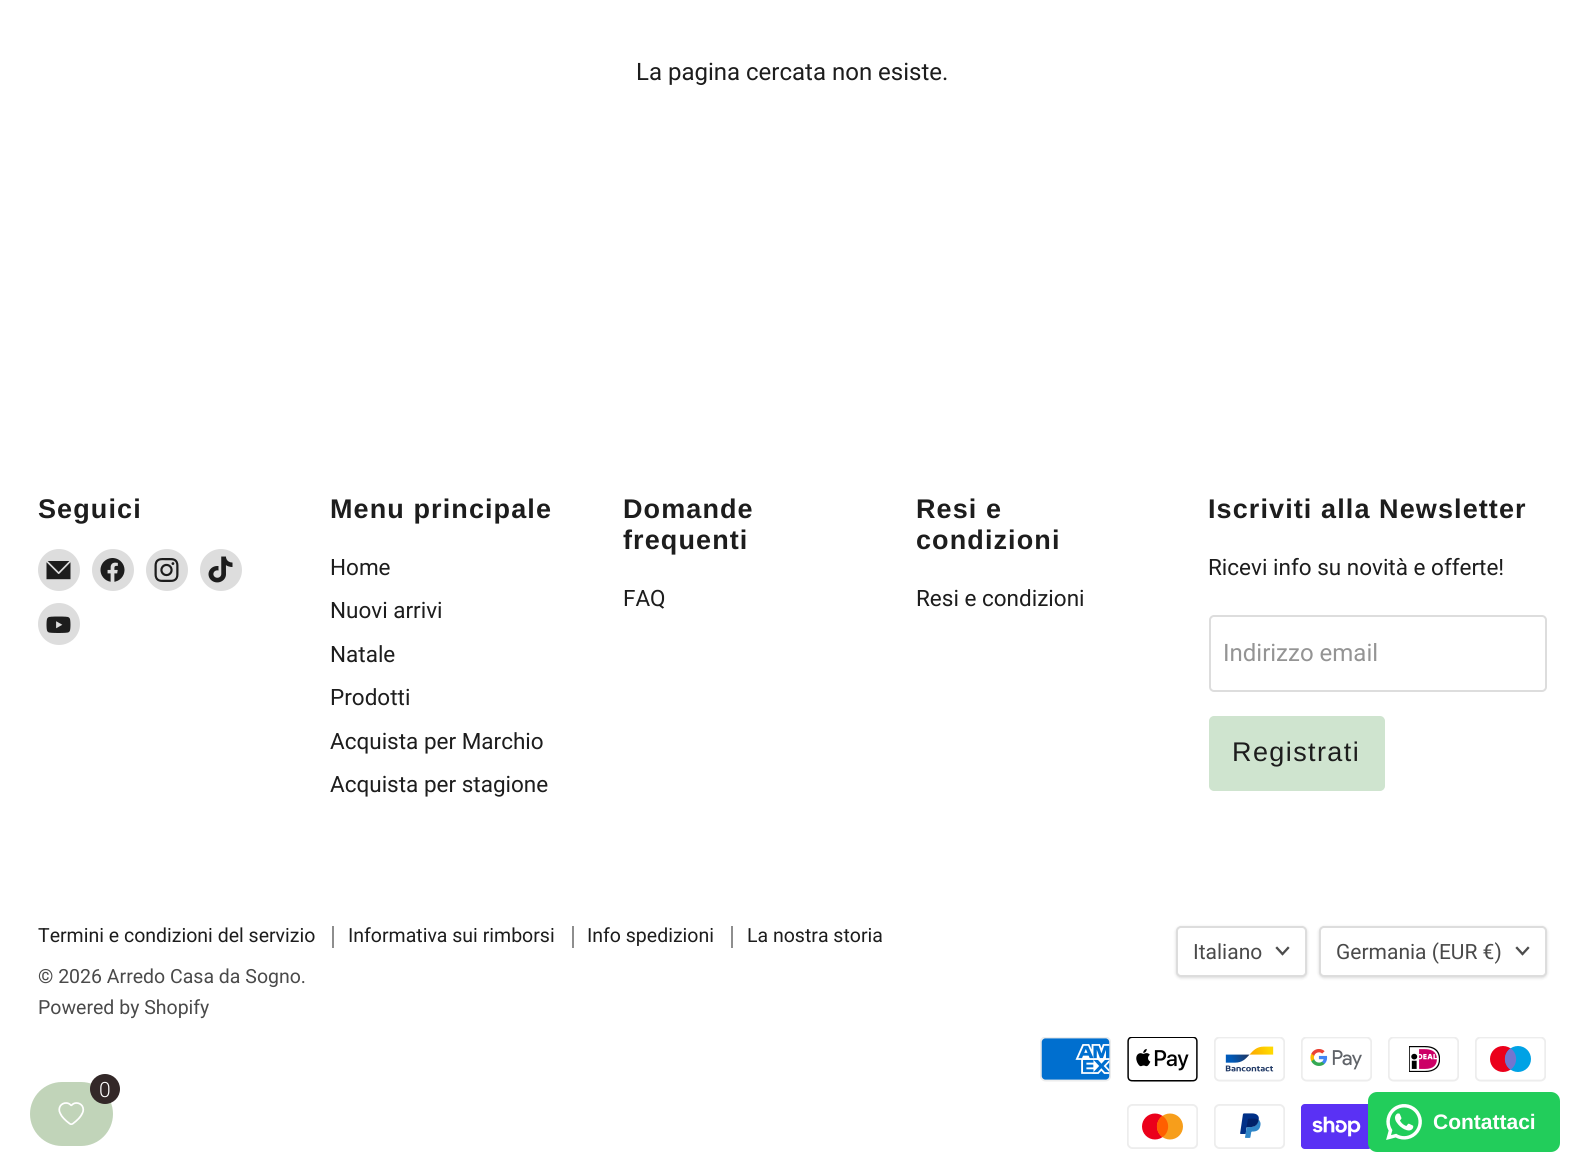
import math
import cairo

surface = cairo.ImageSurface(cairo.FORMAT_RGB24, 1583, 1176)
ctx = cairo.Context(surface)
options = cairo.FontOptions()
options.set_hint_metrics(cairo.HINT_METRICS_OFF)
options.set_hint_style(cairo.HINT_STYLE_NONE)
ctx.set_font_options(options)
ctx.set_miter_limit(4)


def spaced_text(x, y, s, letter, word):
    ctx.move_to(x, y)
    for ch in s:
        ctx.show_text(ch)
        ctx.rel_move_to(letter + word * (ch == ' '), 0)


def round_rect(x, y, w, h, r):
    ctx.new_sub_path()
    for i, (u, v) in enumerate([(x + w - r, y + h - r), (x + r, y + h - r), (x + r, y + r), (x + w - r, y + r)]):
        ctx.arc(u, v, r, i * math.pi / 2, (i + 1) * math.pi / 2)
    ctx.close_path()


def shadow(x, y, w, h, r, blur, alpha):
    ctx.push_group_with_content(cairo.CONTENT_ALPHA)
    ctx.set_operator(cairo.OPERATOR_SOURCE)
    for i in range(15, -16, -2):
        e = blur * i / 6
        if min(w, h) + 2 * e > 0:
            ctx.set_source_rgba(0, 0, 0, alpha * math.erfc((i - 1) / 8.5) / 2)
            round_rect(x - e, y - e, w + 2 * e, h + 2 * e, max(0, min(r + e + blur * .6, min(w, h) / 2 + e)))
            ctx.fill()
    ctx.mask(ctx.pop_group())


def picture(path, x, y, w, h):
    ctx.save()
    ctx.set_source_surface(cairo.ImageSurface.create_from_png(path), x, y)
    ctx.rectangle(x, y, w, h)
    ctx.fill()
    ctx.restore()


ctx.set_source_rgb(1, 1, 1)
ctx.paint()
ctx.select_font_face("Roboto")
ctx.set_font_size(24)
ctx.set_source_rgb(0.114, 0.114, 0.114)
ctx.move_to(636, 80)
ctx.show_text("La pagina cercata non esiste.")
ctx.select_font_face("Liberation Sans", cairo.FONT_SLANT_NORMAL, cairo.FONT_WEIGHT_BOLD)
ctx.set_font_size(27)
spaced_text(38, 518, "Seguici", 1.1, 0)
ctx.set_source_rgb(0.867, 0.867, 0.867)
ctx.new_path()
ctx.arc(59, 570, 21, 0, 2 * math.pi)
ctx.fill()
picture("img1.png", 46, 561, 25, 19)
ctx.arc(113, 570, 21, 0, 2 * math.pi)
ctx.fill()
picture("img2.png", 100, 558, 25, 24)
ctx.arc(167, 570, 21, 0, 2 * math.pi)
ctx.fill()
picture("img3.png", 154, 558, 25, 24)
ctx.arc(221, 570, 21, 0, 2 * math.pi)
ctx.fill()
picture("img4.png", 208, 556, 25, 27)
ctx.arc(59, 624, 21, 0, 2 * math.pi)
ctx.fill()
picture("img5.png", 46, 616, 25, 17)
ctx.set_source_rgb(0.114, 0.114, 0.114)
spaced_text(330, 518, "Menu principale", 1.1, 0)
ctx.select_font_face("Roboto")
ctx.set_font_size(22.5)
ctx.move_to(330, 575)
ctx.show_text("Home")
ctx.move_to(330, 618)
ctx.show_text("Nuovi arrivi")
ctx.move_to(330, 662)
ctx.show_text("Natale")
ctx.move_to(330, 705)
ctx.show_text("Prodotti")
ctx.move_to(330, 749)
ctx.show_text("Acquista per Marchio")
ctx.move_to(330, 792)
ctx.show_text("Acquista per stagione")
ctx.select_font_face("Liberation Sans", cairo.FONT_SLANT_NORMAL, cairo.FONT_WEIGHT_BOLD)
ctx.set_font_size(27)
spaced_text(623, 518, "Domande", 1.1, 0)
spaced_text(623, 549, "frequenti", 1.1, 0)
ctx.select_font_face("Roboto")
ctx.set_font_size(22.5)
ctx.move_to(623, 606)
ctx.show_text("FAQ")
ctx.select_font_face("Liberation Sans", cairo.FONT_SLANT_NORMAL, cairo.FONT_WEIGHT_BOLD)
ctx.set_font_size(27)
spaced_text(916, 518, "Resi e", 1.1, 0)
spaced_text(916, 549, "condizioni", 1.1, 0)
ctx.select_font_face("Roboto")
ctx.set_font_size(22.5)
ctx.move_to(916, 606)
ctx.show_text("Resi e condizioni")
ctx.select_font_face("Liberation Sans", cairo.FONT_SLANT_NORMAL, cairo.FONT_WEIGHT_BOLD)
ctx.set_font_size(27)
spaced_text(1208, 518, "Iscriviti alla Newsletter", 1.1, 0)
ctx.select_font_face("Roboto")
ctx.set_font_size(22.5)
ctx.move_to(1208, 575)
ctx.show_text("Ricevi info su novità e offerte!")
round_rect(1210, 616, 336, 75, 4)
ctx.set_source_rgb(0.867, 0.867, 0.867)
ctx.stroke()
ctx.set_font_size(24)
ctx.set_source_rgb(0.58, 0.58, 0.58)
ctx.move_to(1223, 661)
ctx.show_text("Indirizzo email")
ctx.set_source_rgb(0.812, 0.894, 0.812)
round_rect(1210, 717, 174, 73, 4)
ctx.fill_preserve()
ctx.stroke()
ctx.select_font_face("Liberation Sans")
ctx.set_font_size(27)
ctx.set_source_rgb(0.114, 0.114, 0.114)
spaced_text(1232, 761, "Registrati", 1.4, 0)
ctx.set_source_rgb(0.557, 0.557, 0.557)
ctx.rectangle(332, 926, 2, 22)
ctx.fill()
ctx.select_font_face("Roboto")
ctx.set_font_size(19.5)
ctx.set_source_rgb(0.114, 0.114, 0.114)
ctx.move_to(38, 942)
ctx.show_text("Termini e condizioni del servizio")
ctx.set_source_rgb(0.557, 0.557, 0.557)
ctx.rectangle(572, 926, 2, 22)
ctx.fill()
ctx.set_source_rgb(0.114, 0.114, 0.114)
ctx.move_to(348, 942)
ctx.show_text("Informativa sui rimborsi")
ctx.set_source_rgb(0.557, 0.557, 0.557)
ctx.rectangle(731, 926, 2, 22)
ctx.fill()
ctx.set_source_rgb(0.114, 0.114, 0.114)
ctx.move_to(587, 942)
ctx.show_text("Info spedizioni")
ctx.move_to(747, 942)
ctx.show_text("La nostra storia")
ctx.set_source_rgb(0.29, 0.29, 0.29)
ctx.move_to(38, 983)
ctx.show_text("© 2026 Arredo Casa da Sogno.")
ctx.move_to(38, 1014)
ctx.show_text("Powered by Shopify")
ctx.set_source_rgb(0, 0, 0)
shadow(1176, 927, 131, 51, 5, 1.5, 0.15)
ctx.set_source_rgb(1, 1, 1)
round_rect(1177, 927, 129, 49, 4)
ctx.fill_preserve()
ctx.set_source_rgb(0.867, 0.867, 0.867)
ctx.stroke()
ctx.set_font_size(21)
ctx.set_source_rgb(0.29, 0.29, 0.29)
ctx.move_to(1193, 959)
ctx.show_text("Italiano")
ctx.new_path()
ctx.move_to(1282.5, 954)
ctx.line_to(1288, 948)
ctx.move_to(1282.5, 954)
ctx.line_to(1277, 948)
ctx.set_source_rgb(0.302, 0.302, 0.302)
ctx.set_line_width(2.3)
ctx.set_line_cap(cairo.LINE_CAP_SQUARE)
ctx.stroke()
ctx.set_source_rgb(0, 0, 0)
shadow(1319, 927, 228, 51, 5, 1.5, 0.15)
ctx.set_source_rgb(1, 1, 1)
round_rect(1320, 927, 226, 49, 4)
ctx.fill_preserve()
ctx.set_source_rgb(0.867, 0.867, 0.867)
ctx.set_line_width(2)
ctx.set_line_cap(cairo.LINE_CAP_BUTT)
ctx.stroke()
ctx.set_source_rgb(0.29, 0.29, 0.29)
ctx.move_to(1336, 959)
ctx.show_text("Germania (EUR €)")
ctx.new_path()
ctx.move_to(1522.5, 954)
ctx.line_to(1528, 948)
ctx.move_to(1522.5, 954)
ctx.line_to(1517, 948)
ctx.set_source_rgb(0.302, 0.302, 0.302)
ctx.set_line_width(2.3)
ctx.set_line_cap(cairo.LINE_CAP_SQUARE)
ctx.stroke()
picture("img6.png", 1040, 1037, 71, 45)
picture("img7.png", 1127, 1037, 71, 45)
picture("img8.png", 1214, 1037, 71, 45)
picture("img9.png", 1301, 1037, 71, 45)
picture("img10.png", 1388, 1037, 71, 45)
picture("img11.png", 1475, 1037, 71, 45)
picture("img12.png", 1127, 1104, 71, 45)
picture("img13.png", 1214, 1104, 71, 45)
picture("img14.png", 1301, 1104, 70, 45)
ctx.set_source_rgb(0.757, 0.831, 0.725)
round_rect(30, 1082, 83, 64, 32)
ctx.fill()
ctx.set_source_rgb(0.2, 0.157, 0.157)
ctx.arc(105, 1089, 15, 0, 2 * math.pi)
ctx.fill()
ctx.select_font_face("Roboto Light")
ctx.set_source_rgb(1, 1, 1)
ctx.move_to(99, 1097)
ctx.show_text("0")
picture("img15.png", 58, 1102, 27, 23)
ctx.set_source_rgb(0.133, 0.804, 0.357)
round_rect(1368, 1092, 192, 60, 9)
ctx.fill()
picture("img16.png", 1386, 1104, 36, 36)
ctx.select_font_face("Liberation Sans", cairo.FONT_SLANT_NORMAL, cairo.FONT_WEIGHT_BOLD)
ctx.set_source_rgb(1, 1, 1)
ctx.move_to(1433, 1129)
ctx.show_text("Contattaci")
surface.write_to_png("page.png")
